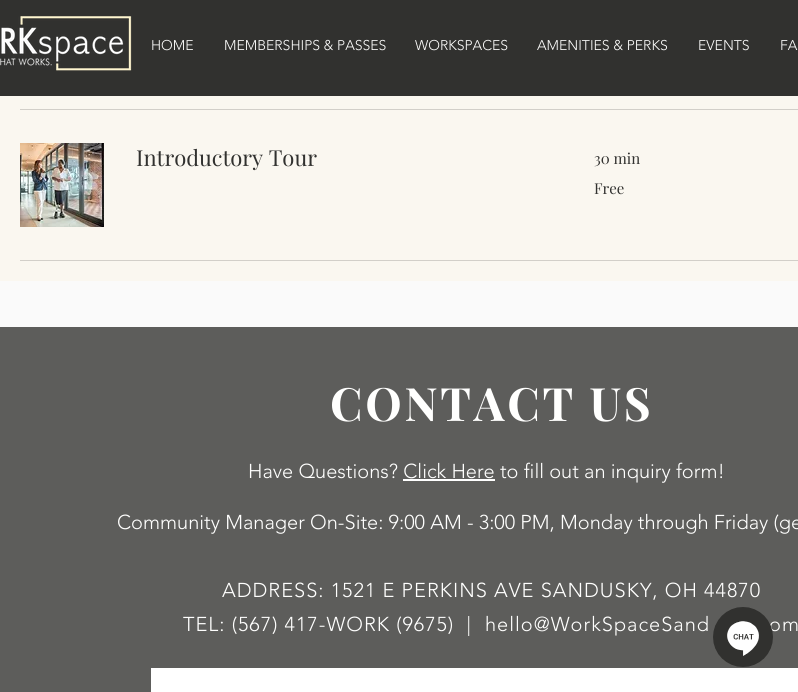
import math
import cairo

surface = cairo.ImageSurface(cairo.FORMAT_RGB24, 798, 692)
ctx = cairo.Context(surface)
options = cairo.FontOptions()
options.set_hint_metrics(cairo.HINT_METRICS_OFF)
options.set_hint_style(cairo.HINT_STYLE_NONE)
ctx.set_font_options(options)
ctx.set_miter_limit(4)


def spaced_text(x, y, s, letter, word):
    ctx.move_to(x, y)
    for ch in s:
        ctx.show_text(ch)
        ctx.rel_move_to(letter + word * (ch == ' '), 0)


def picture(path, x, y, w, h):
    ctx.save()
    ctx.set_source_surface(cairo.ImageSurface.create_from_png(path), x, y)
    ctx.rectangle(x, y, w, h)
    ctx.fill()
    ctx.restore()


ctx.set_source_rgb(0.98, 0.98, 0.98)
ctx.paint()
ctx.set_source_rgb(0.192, 0.192, 0.184)
ctx.rectangle(0, 0, 798, 96)
ctx.fill()
picture("img1.png", 0, 16, 132, 55)
ctx.select_font_face("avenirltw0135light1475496 Light")
ctx.set_font_size(14)
ctx.set_source_rgb(1, 1, 0.996)
ctx.move_to(151, 50)
ctx.show_text("HOME")
ctx.move_to(224, 50)
ctx.show_text("MEMBERSHIPS & PASSES")
ctx.move_to(415, 50)
ctx.show_text("WORKSPACES")
ctx.move_to(537, 50)
ctx.show_text("AMENITIES & PERKS")
ctx.move_to(698, 50)
ctx.show_text("EVENTS")
ctx.move_to(780, 50)
ctx.show_text("FA")
ctx.set_source_rgb(0.98, 0.965, 0.941)
ctx.rectangle(0, 96, 798, 185)
ctx.fill()
ctx.set_source_rgb(0.824, 0.812, 0.788)
ctx.rectangle(20, 109, 778, 1)
ctx.fill()
picture("img2.png", 20, 143, 84, 84)
ctx.select_font_face("Playfair Display")
ctx.set_font_size(22)
ctx.set_source_rgb(0.192, 0.192, 0.184)
ctx.move_to(136, 166)
ctx.show_text("Introductory Tour")
ctx.set_font_size(15)
ctx.move_to(594, 164)
ctx.show_text("30 min")
ctx.move_to(594, 194)
ctx.show_text("Free")
ctx.set_source_rgb(0.824, 0.812, 0.788)
ctx.rectangle(20, 260, 778, 1)
ctx.fill()
ctx.set_source_rgb(0.365, 0.365, 0.357)
ctx.rectangle(0, 327, 798, 365)
ctx.fill()
ctx.select_font_face("Playfair Display", cairo.FONT_SLANT_NORMAL, cairo.FONT_WEIGHT_BOLD)
ctx.set_font_size(46)
ctx.set_source_rgb(1, 1, 0.996)
spaced_text(330, 421, "CONTACT US", 2.75, 0)
ctx.select_font_face("avenirltw0135light1475496 Light")
ctx.set_font_size(20)
ctx.move_to(248, 478)
ctx.show_text("Have Questions? Click Here to fill out an inquiry form!")
ctx.set_source_rgb(1, 1, 1)
ctx.rectangle(403, 479, 92, 2)
ctx.fill()
ctx.set_source_rgb(1, 1, 0.996)
ctx.move_to(117, 529)
ctx.show_text("Community Manager On-Site: 9:00 AM - 3:00 PM, Monday through Friday (ge")
spaced_text(222, 597, "ADDRESS: 1521 E PERKINS AVE SANDUSKY, OH 44870", 1, 0)
spaced_text(183, 631, "TEL: (567) 417-WORK (9675)  |", 1, 0)
spaced_text(485, 631, "hello@WorkSpaceSand", 1, 0)
spaced_text(769, 631, "om", 1, 0)
ctx.set_source_rgb(1, 1, 1)
ctx.rectangle(151, 668, 647, 24)
ctx.fill()
picture("img3.png", 713, 607, 60, 60)
surface.write_to_png("page.png")
